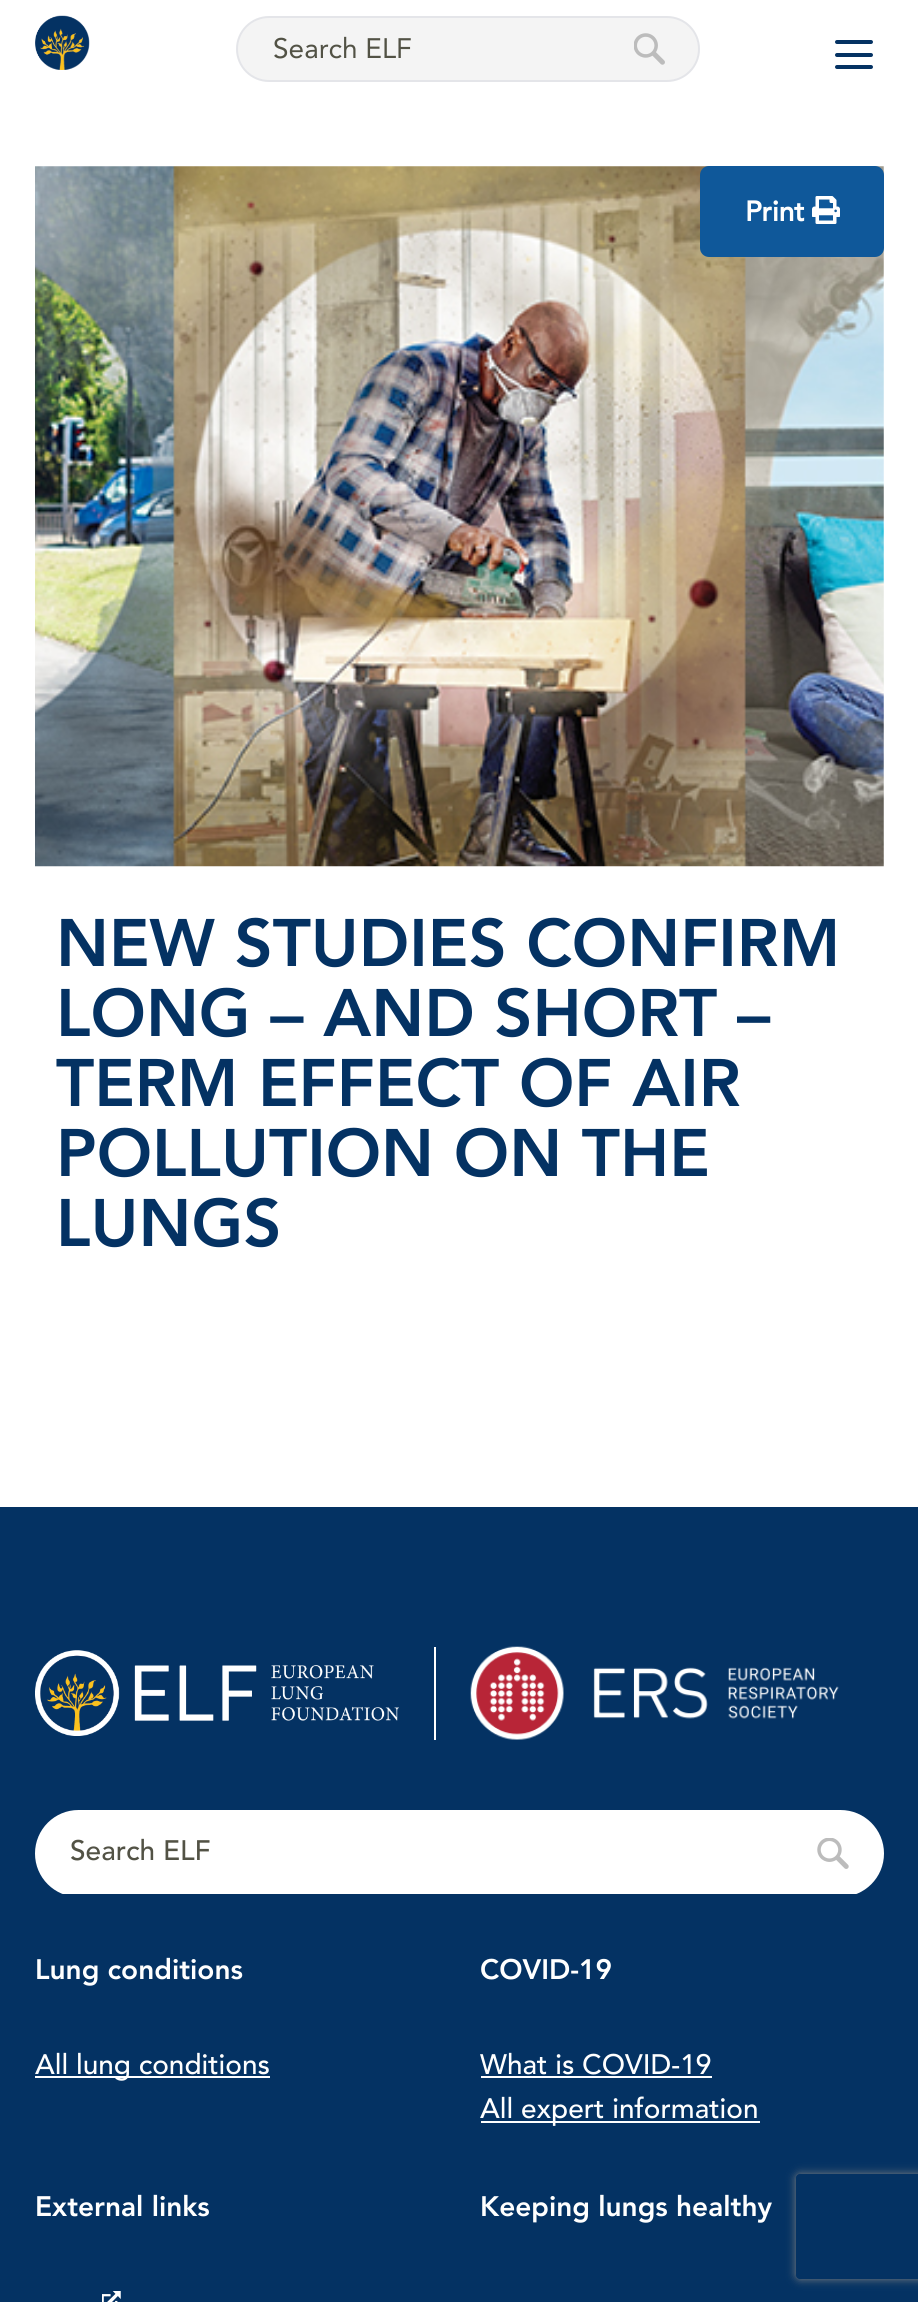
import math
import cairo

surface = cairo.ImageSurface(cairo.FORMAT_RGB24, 918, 2302)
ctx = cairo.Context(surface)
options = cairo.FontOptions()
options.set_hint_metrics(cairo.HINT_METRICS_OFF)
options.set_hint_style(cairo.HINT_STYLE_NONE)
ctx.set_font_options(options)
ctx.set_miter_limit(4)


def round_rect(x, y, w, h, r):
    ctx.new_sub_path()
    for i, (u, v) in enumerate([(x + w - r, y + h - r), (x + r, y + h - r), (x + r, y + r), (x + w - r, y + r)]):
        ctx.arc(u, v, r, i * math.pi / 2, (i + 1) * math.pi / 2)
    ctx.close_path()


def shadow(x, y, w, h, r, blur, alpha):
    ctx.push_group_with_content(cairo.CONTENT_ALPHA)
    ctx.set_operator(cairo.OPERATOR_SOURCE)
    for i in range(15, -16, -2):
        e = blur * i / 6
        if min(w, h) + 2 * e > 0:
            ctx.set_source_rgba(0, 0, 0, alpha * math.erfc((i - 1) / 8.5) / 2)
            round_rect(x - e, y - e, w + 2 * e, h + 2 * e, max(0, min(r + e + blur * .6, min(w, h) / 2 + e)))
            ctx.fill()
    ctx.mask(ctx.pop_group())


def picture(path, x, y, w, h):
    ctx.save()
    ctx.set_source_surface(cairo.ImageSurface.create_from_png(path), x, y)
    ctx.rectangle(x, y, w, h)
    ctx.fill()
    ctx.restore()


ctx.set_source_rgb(1, 1, 1)
ctx.paint()
picture("img1.png", 35, 15, 55, 55)
ctx.set_source_rgb(0.957, 0.957, 0.957)
round_rect(237, 17, 462, 64, 32)
ctx.fill_preserve()
ctx.set_source_rgb(0.894, 0.898, 0.914)
ctx.stroke()
ctx.select_font_face("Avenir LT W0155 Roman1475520")
ctx.set_font_size(28)
ctx.set_source_rgb(0.322, 0.322, 0.271)
ctx.move_to(273, 58)
ctx.show_text("Search ELF")
picture("img2.png", 634, 33, 31, 32)
ctx.set_source_rgb(0.016, 0.196, 0.388)
round_rect(835, 53, 38, 4, 2)
ctx.fill()
round_rect(835, 40, 38, 4, 2)
ctx.fill()
round_rect(835, 65, 38, 4, 2)
ctx.fill()
picture("img3.png", 35, 166, 849, 701)
ctx.set_source_rgb(0.059, 0.345, 0.604)
round_rect(700, 166, 184, 91, 9)
ctx.fill()
ctx.select_font_face("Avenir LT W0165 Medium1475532", cairo.FONT_SLANT_NORMAL, cairo.FONT_WEIGHT_BOLD)
ctx.set_source_rgb(1, 1, 1)
ctx.move_to(745, 221)
ctx.show_text("Print")
picture("img4.png", 812, 196, 28, 28)
ctx.select_font_face("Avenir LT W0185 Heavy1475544 Black")
ctx.set_font_size(66.5)
ctx.set_source_rgb(0.016, 0.196, 0.388)
ctx.move_to(56, 966)
ctx.show_text("NEW STUDIES CONFIRM")
ctx.move_to(56, 1036)
ctx.show_text("LONG – AND SHORT –")
ctx.move_to(56, 1106)
ctx.show_text("TERM EFFECT OF AIR")
ctx.move_to(56, 1176)
ctx.show_text("POLLUTION ON THE")
ctx.move_to(56, 1246)
ctx.show_text("LUNGS")
ctx.rectangle(0, 1507, 918, 795)
ctx.fill()
ctx.set_source_rgb(1, 1, 1)
ctx.rectangle(434, 1647, 2, 93)
ctx.fill()
picture("img5.png", 35, 1650, 364, 86)
picture("img6.png", 470, 1646, 369, 94)
round_rect(35, 1810, 849, 87, 43.5)
ctx.fill()
ctx.set_source_rgb(0.016, 0.196, 0.388)
ctx.rectangle(58, 1894, 805, 3)
ctx.fill()
ctx.select_font_face("Avenir LT W0165 Medium1475532 Medium")
ctx.set_font_size(28)
ctx.set_source_rgb(0.322, 0.322, 0.271)
ctx.move_to(70, 1860)
ctx.show_text("Search ELF")
picture("img7.png", 817, 1838, 32, 31)
ctx.select_font_face("Avenir LT W0185 Heavy1475544 Black")
ctx.set_source_rgb(1, 1, 1)
ctx.move_to(35, 1979)
ctx.show_text("Lung conditions")
ctx.rectangle(35, 2076, 235, 2)
ctx.fill()
ctx.select_font_face("Avenir LT W0165 Medium1475532 Medium")
ctx.move_to(35, 2074)
ctx.show_text("All lung conditions")
ctx.select_font_face("Avenir LT W0185 Heavy1475544 Black")
ctx.move_to(480, 1979)
ctx.show_text("COVID-19")
ctx.select_font_face("Avenir LT W0165 Medium1475532 Medium")
ctx.move_to(480, 2074)
ctx.show_text("What is COVID-19")
ctx.rectangle(481, 2076, 231, 2)
ctx.fill()
ctx.rectangle(481, 2121, 279, 2)
ctx.fill()
ctx.move_to(480, 2118)
ctx.show_text("All expert information")
ctx.select_font_face("Avenir LT W0185 Heavy1475544 Black")
ctx.move_to(35, 2216)
ctx.show_text("External links")
picture("img8.png", 102, 2291, 19, 11)
ctx.move_to(480, 2216)
ctx.show_text("Keeping lungs healthy")
ctx.save()
ctx.set_fill_rule(cairo.FILL_RULE_EVEN_ODD)
ctx.new_path()
ctx.move_to(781, 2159)
ctx.line_to(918, 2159)
ctx.line_to(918, 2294)
ctx.line_to(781, 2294)
ctx.close_path()
ctx.move_to(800, 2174)
ctx.line_to(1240, 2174)
ctx.curve_to(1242, 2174, 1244, 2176, 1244, 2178)
ctx.line_to(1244, 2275)
ctx.curve_to(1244, 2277, 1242, 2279, 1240, 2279)
ctx.line_to(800, 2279)
ctx.curve_to(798, 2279, 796, 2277, 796, 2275)
ctx.line_to(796, 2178)
ctx.curve_to(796, 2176, 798, 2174, 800, 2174)
ctx.close_path()
ctx.clip()
ctx.set_source_rgb(0.502, 0.502, 0.502)
shadow(796, 2174, 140, 105, 4, 4.5, 1)
ctx.restore()
surface.write_to_png("page.png")
